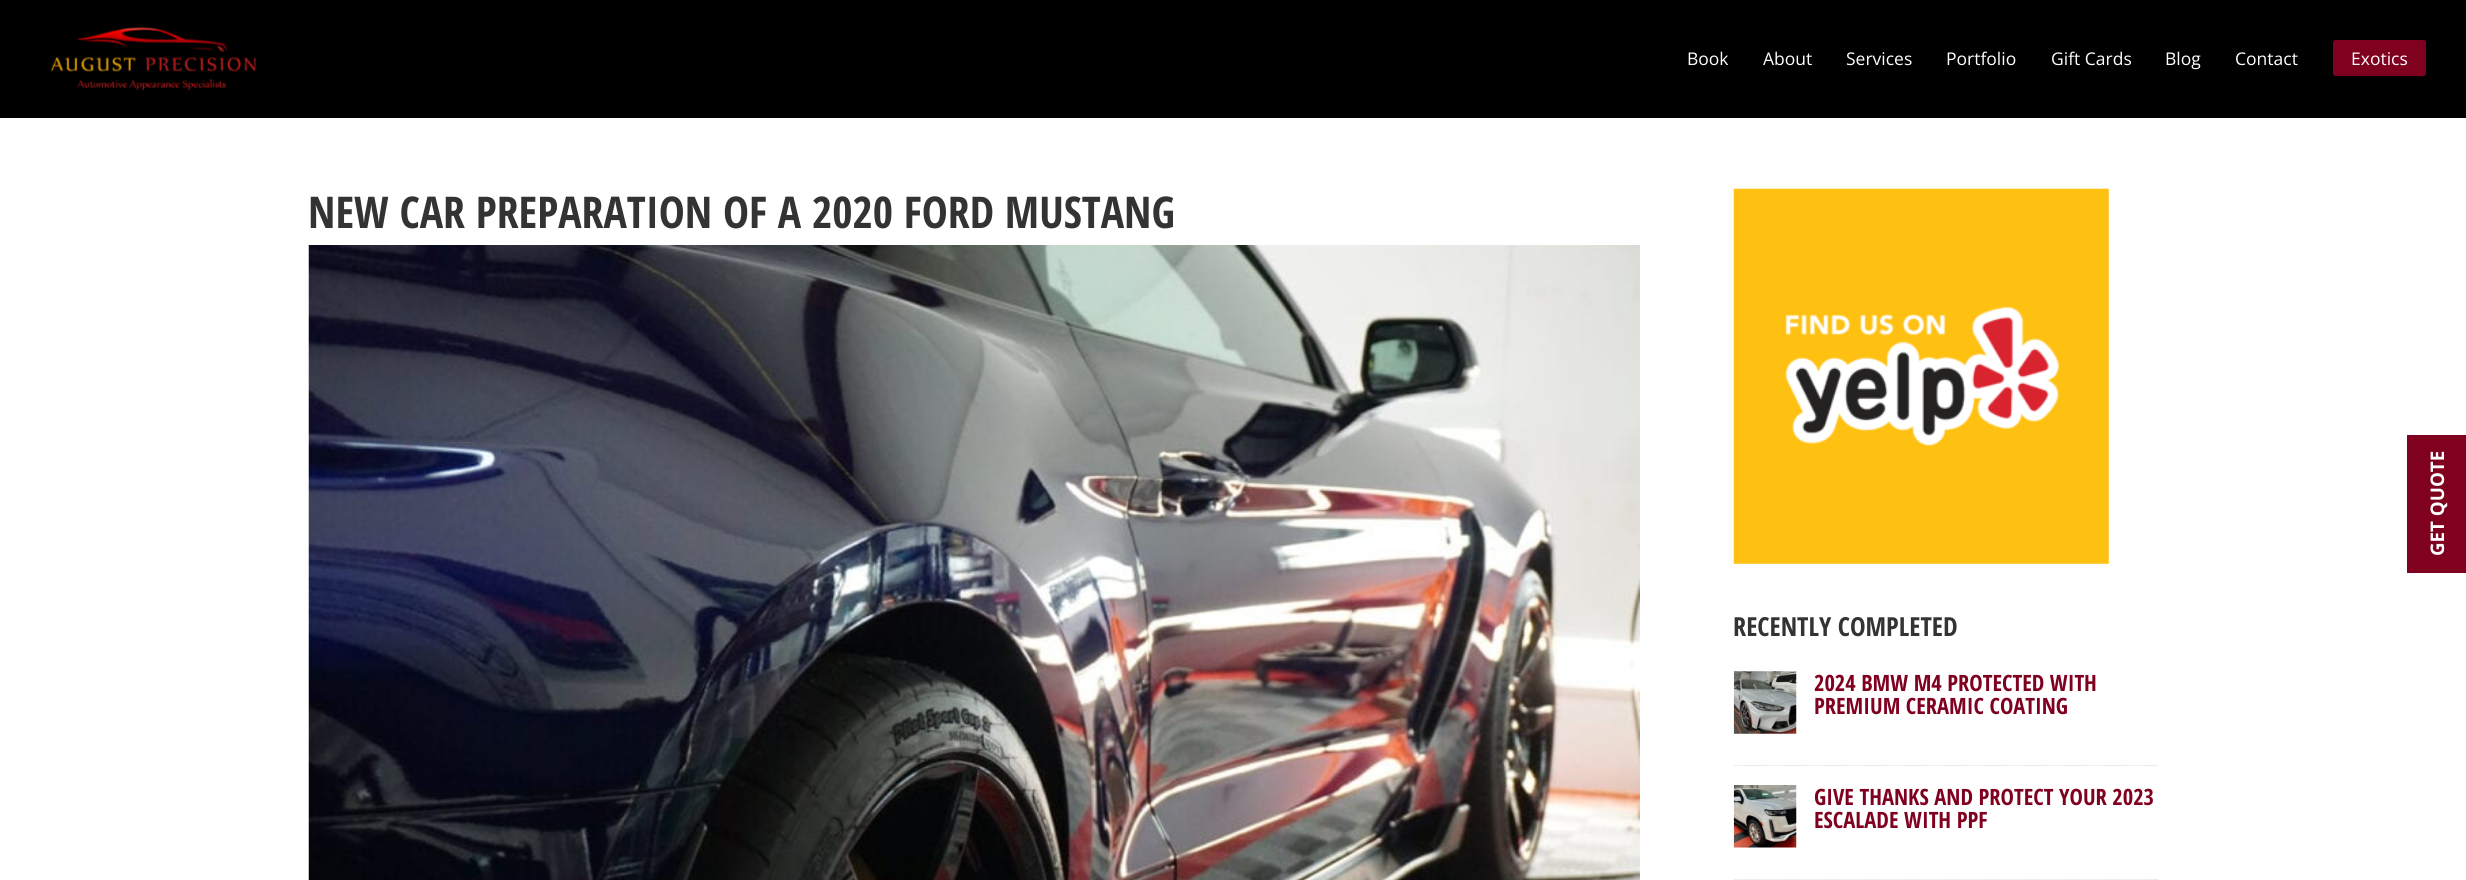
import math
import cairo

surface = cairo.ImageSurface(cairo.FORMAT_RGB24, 2466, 880)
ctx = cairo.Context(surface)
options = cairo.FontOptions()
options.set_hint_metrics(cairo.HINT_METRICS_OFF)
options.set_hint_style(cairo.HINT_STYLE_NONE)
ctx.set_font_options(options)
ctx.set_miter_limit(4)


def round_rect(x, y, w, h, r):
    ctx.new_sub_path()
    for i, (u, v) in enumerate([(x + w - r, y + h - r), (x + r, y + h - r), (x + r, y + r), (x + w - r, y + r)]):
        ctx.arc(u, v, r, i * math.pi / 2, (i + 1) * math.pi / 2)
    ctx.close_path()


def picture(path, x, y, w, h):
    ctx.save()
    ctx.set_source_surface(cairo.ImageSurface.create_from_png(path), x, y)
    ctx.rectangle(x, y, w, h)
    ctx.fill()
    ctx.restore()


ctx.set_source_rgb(1, 1, 1)
ctx.paint()
ctx.set_source_rgb(0, 0, 0)
ctx.rectangle(0, 0, 2466, 118)
ctx.fill()
picture("img1.png", 50, 27, 206, 64)
ctx.select_font_face("Open Sans")
ctx.set_font_size(17.5)
ctx.set_source_rgb(1, 1, 1)
ctx.move_to(1687, 65)
ctx.show_text("Book")
ctx.move_to(1763, 65)
ctx.show_text("About")
ctx.move_to(1846, 65)
ctx.show_text("Services")
ctx.move_to(1946, 65)
ctx.show_text("Portfolio")
ctx.move_to(2051, 65)
ctx.show_text("Gift Cards")
ctx.move_to(2165, 65)
ctx.show_text("Blog")
ctx.move_to(2235, 65)
ctx.show_text("Contact")
ctx.set_source_rgb(0.502, 0, 0.125)
round_rect(2333.5, 40.5, 92, 35, 2)
ctx.fill_preserve()
ctx.set_line_width(1)
ctx.stroke()
ctx.set_source_rgb(1, 1, 1)
ctx.move_to(2351, 65)
ctx.show_text("Exotics")
ctx.select_font_face("Open Sans Condensed", cairo.FONT_SLANT_NORMAL, cairo.FONT_WEIGHT_BOLD)
ctx.set_font_size(43.75)
ctx.set_source_rgb(0.2, 0.2, 0.2)
ctx.move_to(308, 228)
ctx.show_text("NEW CAR PREPARATION OF A 2020 FORD MUSTANG")
picture("img2.png", 308, 245, 1332, 635)
picture("img3.png", 1733, 188, 376, 376)
ctx.set_font_size(26.25)
ctx.move_to(1733, 636)
ctx.show_text("RECENTLY COMPLETED")
ctx.new_path()
ctx.move_to(1734, 765.5)
ctx.line_to(2159, 765.5)
ctx.set_source_rgb(0.867, 0.867, 0.867)
ctx.set_line_width(1.2)
ctx.set_dash([1.25, 1.25])
ctx.stroke()
picture("img4.png", 1733, 671, 64, 63)
ctx.set_font_size(22.5)
ctx.set_source_rgb(0.502, 0, 0.125)
ctx.move_to(1814, 691)
ctx.show_text("2024 BMW M4 PROTECTED WITH")
ctx.move_to(1814, 714)
ctx.show_text("PREMIUM CERAMIC COATING")
ctx.new_path()
ctx.move_to(1734, 879.5)
ctx.line_to(2159, 879.5)
ctx.set_source_rgb(0.867, 0.867, 0.867)
ctx.stroke()
picture("img5.png", 1733, 785, 64, 63)
ctx.set_source_rgb(0.502, 0, 0.125)
ctx.move_to(1814, 805)
ctx.show_text("GIVE THANKS AND PROTECT YOUR 2023")
ctx.move_to(1814, 828)
ctx.show_text("ESCALADE WITH PPF")
ctx.rectangle(2407, 435, 59, 138)
ctx.fill()
ctx.select_font_face("Open Sans", cairo.FONT_SLANT_NORMAL, cairo.FONT_WEIGHT_BOLD)
ctx.set_font_size(18.75)
ctx.set_source_rgb(1, 1, 1)
ctx.save()
ctx.translate(2444, 556)
ctx.rotate(-90 * math.pi / 180)
ctx.move_to(0, 0)
ctx.show_text("GET QUOTE")
ctx.restore()
surface.write_to_png("page.png")
